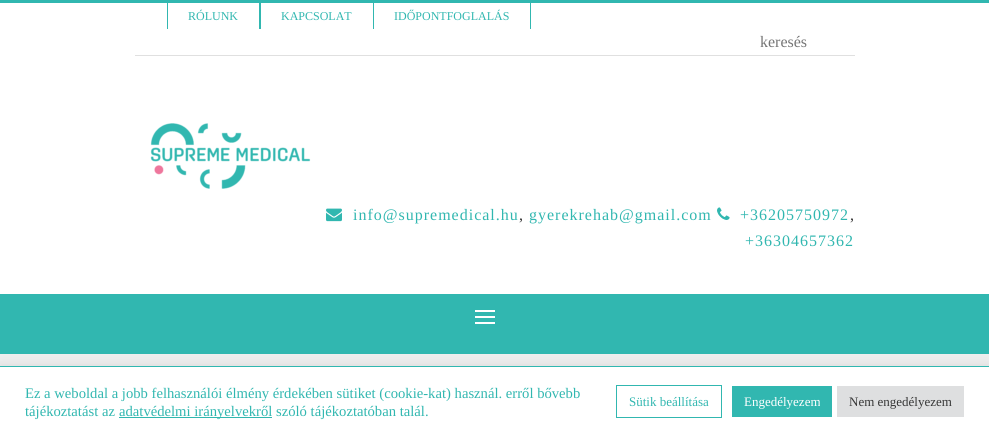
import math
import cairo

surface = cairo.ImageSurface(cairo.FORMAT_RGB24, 989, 436)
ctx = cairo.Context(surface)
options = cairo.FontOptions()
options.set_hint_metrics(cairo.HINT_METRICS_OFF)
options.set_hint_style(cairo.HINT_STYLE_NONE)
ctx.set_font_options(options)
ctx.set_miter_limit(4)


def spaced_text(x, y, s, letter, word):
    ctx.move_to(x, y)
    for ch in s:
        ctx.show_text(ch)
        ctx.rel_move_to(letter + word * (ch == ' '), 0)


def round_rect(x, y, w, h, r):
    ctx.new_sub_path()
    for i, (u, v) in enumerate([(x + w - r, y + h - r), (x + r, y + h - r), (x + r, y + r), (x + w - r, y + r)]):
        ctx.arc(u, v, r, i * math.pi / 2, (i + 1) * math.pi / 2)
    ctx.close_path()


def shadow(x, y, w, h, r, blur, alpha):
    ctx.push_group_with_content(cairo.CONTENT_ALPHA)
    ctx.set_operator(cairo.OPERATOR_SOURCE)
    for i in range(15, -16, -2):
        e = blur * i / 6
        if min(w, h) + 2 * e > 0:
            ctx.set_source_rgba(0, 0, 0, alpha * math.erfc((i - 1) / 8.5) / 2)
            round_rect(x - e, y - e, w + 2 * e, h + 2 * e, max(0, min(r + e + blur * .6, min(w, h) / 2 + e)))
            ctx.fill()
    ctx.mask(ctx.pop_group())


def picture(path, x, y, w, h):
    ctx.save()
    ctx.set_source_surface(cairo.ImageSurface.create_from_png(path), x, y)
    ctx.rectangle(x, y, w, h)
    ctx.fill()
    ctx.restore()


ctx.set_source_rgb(1, 1, 1)
ctx.paint()
ctx.set_source_rgb(0.192, 0.718, 0.69)
ctx.rectangle(0, 0, 989, 3)
ctx.fill()
ctx.set_source_rgb(0.878, 0.878, 0.878)
ctx.rectangle(135, 55, 720, 1)
ctx.fill()
ctx.set_source_rgb(0.192, 0.718, 0.69)
ctx.rectangle(259, 3, 2, 26)
ctx.fill()
ctx.rectangle(167, 3, 1, 26)
ctx.fill()
ctx.select_font_face("Liberation Serif")
ctx.set_font_size(12)
ctx.move_to(188, 20)
ctx.show_text("RÓLUNK")
ctx.move_to(281, 20)
ctx.show_text("KAPCSOLAT")
ctx.rectangle(530, 3, 1, 26)
ctx.fill()
ctx.rectangle(373, 3, 1, 26)
ctx.fill()
ctx.move_to(394, 20)
ctx.show_text("IDŐPONTFOGLALÁS")
ctx.set_font_size(16)
ctx.set_source_rgb(0.459, 0.459, 0.459)
ctx.move_to(760, 47)
ctx.show_text("keresés")
picture("img1.png", 150, 123, 161, 66)
picture("img2.png", 326, 208, 16, 14)
ctx.set_source_rgb(0.192, 0.718, 0.69)
spaced_text(353, 220, "info@supremedical.hu", 1, 0)
ctx.set_source_rgb(0.212, 0.212, 0.212)
spaced_text(519, 220, ",", 1, 0)
ctx.set_source_rgb(0.192, 0.718, 0.69)
spaced_text(529, 220, "gyerekrehab@gmail.com", 1, 0)
picture("img3.png", 717, 207, 13, 13)
spaced_text(740, 220, "+36205750972", 1, 0)
ctx.set_source_rgb(0.212, 0.212, 0.212)
spaced_text(850, 220, ",", 1, 0)
ctx.set_source_rgb(0.192, 0.718, 0.69)
spaced_text(745, 246, "+36304657362", 1, 0)
ctx.rectangle(0, 294, 989, 60)
ctx.fill()
ctx.set_source_rgb(1, 1, 1)
ctx.rectangle(475, 310, 20, 2)
ctx.fill()
ctx.rectangle(475, 316, 20, 2)
ctx.fill()
ctx.rectangle(475, 322, 20, 2)
ctx.fill()
ctx.set_source_rgb(0.933, 0.933, 0.933)
ctx.rectangle(0, 354, 989, 12)
ctx.fill()
ctx.set_source_rgb(0.675, 0.671, 0.671)
shadow(0, 365, 989, 70, 0, 5, 0.3)
ctx.set_source_rgb(1, 1, 1)
ctx.rectangle(0, 367, 989, 69)
ctx.fill()
ctx.set_source_rgb(0.192, 0.718, 0.69)
ctx.rectangle(0, 366, 989, 1)
ctx.fill()
ctx.set_font_size(14.65)
ctx.move_to(25, 398)
ctx.show_text("Ez a weboldal a jobb felhasználói élmény érdekében sütiket (cookie-kat) használ. erről bővebb")
ctx.move_to(25, 416)
ctx.show_text("tájékoztatást az")
ctx.rectangle(119, 417, 153, 1)
ctx.fill()
ctx.move_to(119, 416)
ctx.show_text("adatvédelmi irányelvekről szóló tájékoztatóban talál.")
ctx.rectangle(616.5, 385.5, 105, 32)
ctx.set_line_width(1)
ctx.stroke()
ctx.set_font_size(13)
ctx.move_to(629, 406)
ctx.show_text("Sütik beállítása")
ctx.rectangle(732, 386, 100, 31)
ctx.fill()
ctx.set_source_rgb(1, 1, 1)
ctx.move_to(744, 406)
ctx.show_text("Engedélyezem")
ctx.set_source_rgb(0.871, 0.875, 0.878)
ctx.rectangle(837, 386, 127, 31)
ctx.fill()
ctx.set_source_rgb(0.212, 0.212, 0.212)
ctx.move_to(849, 406)
ctx.show_text("Nem engedélyezem")
surface.write_to_png("page.png")
